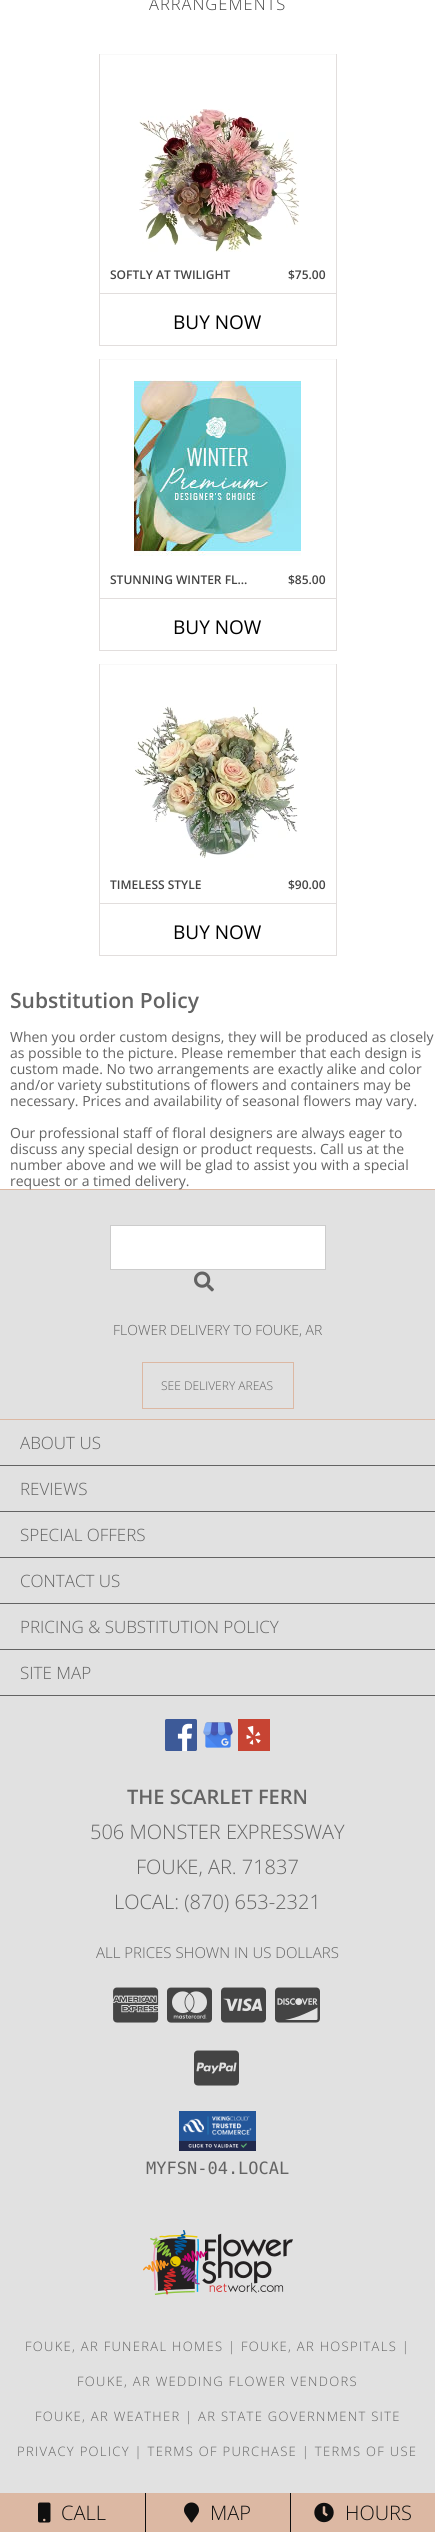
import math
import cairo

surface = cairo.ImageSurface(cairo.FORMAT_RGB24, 435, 2532)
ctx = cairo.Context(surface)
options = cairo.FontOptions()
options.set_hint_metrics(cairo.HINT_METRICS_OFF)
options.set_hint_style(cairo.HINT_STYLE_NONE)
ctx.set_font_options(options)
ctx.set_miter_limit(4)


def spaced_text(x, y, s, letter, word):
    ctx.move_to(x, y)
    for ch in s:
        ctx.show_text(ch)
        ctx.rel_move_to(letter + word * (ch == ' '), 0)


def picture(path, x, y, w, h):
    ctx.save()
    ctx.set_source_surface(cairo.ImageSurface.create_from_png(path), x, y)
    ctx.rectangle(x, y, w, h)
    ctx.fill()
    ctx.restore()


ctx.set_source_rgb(1, 1, 1)
ctx.paint()
ctx.select_font_face("Open Sans Light")
ctx.set_font_size(16.5)
ctx.set_source_rgb(0.267, 0.267, 0.267)
spaced_text(149, 10, "ARRANGEMENTS", 1, 0)
ctx.set_source_rgb(0.976, 0.976, 0.976)
ctx.rectangle(99, 54, 238, 1)
ctx.fill()
ctx.set_source_rgb(0.886, 0.871, 0.867)
ctx.rectangle(336, 54, 1, 292)
ctx.fill()
ctx.rectangle(99, 345, 238, 1)
ctx.fill()
ctx.rectangle(99, 54, 1, 292)
ctx.fill()
picture("img1.png", 139, 109, 161, 143)
ctx.select_font_face("Open Sans SemiBold")
ctx.set_font_size(12)
ctx.set_source_rgb(0.267, 0.267, 0.267)
ctx.move_to(110, 279)
ctx.show_text("SOFTLY AT TWILIGHT")
ctx.move_to(288, 279)
ctx.show_text("$75.00")
ctx.set_source_rgb(0.886, 0.871, 0.867)
ctx.rectangle(100, 293, 236, 1)
ctx.fill()
ctx.select_font_face("Open Sans")
ctx.set_font_size(19)
ctx.set_source_rgb(0, 0, 0)
ctx.move_to(173, 329)
ctx.show_text("BUY NOW")
ctx.set_source_rgb(0.976, 0.976, 0.976)
ctx.rectangle(99, 359, 238, 1)
ctx.fill()
ctx.set_source_rgb(0.886, 0.871, 0.867)
ctx.rectangle(336, 359, 1, 292)
ctx.fill()
ctx.rectangle(99, 650, 238, 1)
ctx.fill()
ctx.rectangle(99, 359, 1, 292)
ctx.fill()
picture("img2.png", 134, 380, 167, 176)
ctx.select_font_face("Open Sans SemiBold")
ctx.set_font_size(12)
ctx.set_source_rgb(0.267, 0.267, 0.267)
ctx.move_to(110, 584)
ctx.show_text("STUNNING WINTER FL…")
ctx.move_to(288, 584)
ctx.show_text("$85.00")
ctx.set_source_rgb(0.886, 0.871, 0.867)
ctx.rectangle(100, 598, 236, 1)
ctx.fill()
ctx.select_font_face("Open Sans")
ctx.set_font_size(19)
ctx.set_source_rgb(0, 0, 0)
ctx.move_to(173, 634)
ctx.show_text("BUY NOW")
ctx.set_source_rgb(0.976, 0.976, 0.976)
ctx.rectangle(99, 664, 238, 1)
ctx.fill()
ctx.set_source_rgb(0.886, 0.871, 0.867)
ctx.rectangle(336, 664, 1, 292)
ctx.fill()
ctx.rectangle(99, 955, 238, 1)
ctx.fill()
ctx.rectangle(99, 664, 1, 292)
ctx.fill()
picture("img3.png", 134, 706, 165, 152)
ctx.select_font_face("Open Sans SemiBold")
ctx.set_font_size(12)
ctx.set_source_rgb(0.267, 0.267, 0.267)
ctx.move_to(110, 889)
ctx.show_text("TIMELESS STYLE")
ctx.move_to(288, 889)
ctx.show_text("$90.00")
ctx.set_source_rgb(0.886, 0.871, 0.867)
ctx.rectangle(100, 903, 236, 1)
ctx.fill()
ctx.select_font_face("Open Sans")
ctx.set_font_size(19)
ctx.set_source_rgb(0, 0, 0)
ctx.move_to(173, 939)
ctx.show_text("BUY NOW")
ctx.select_font_face("Open Sans SemiBold")
ctx.set_font_size(21)
ctx.set_source_rgb(0.388, 0.388, 0.388)
ctx.move_to(10, 1008)
ctx.show_text("Substitution Policy")
ctx.select_font_face("Open Sans")
ctx.set_font_size(14)
ctx.move_to(10, 1042)
ctx.show_text("When you order custom designs, they will be produced as closely")
ctx.move_to(10, 1058)
ctx.show_text("as possible to the picture. Please remember that each design is")
ctx.move_to(10, 1074)
ctx.show_text("custom made. No two arrangements are exactly alike and color")
ctx.move_to(10, 1090)
ctx.show_text("and/or variety substitutions of flowers and containers may be")
ctx.move_to(10, 1106)
ctx.show_text("necessary. Prices and availability of seasonal flowers may vary.")
ctx.move_to(10, 1138)
ctx.show_text("Our professional staff of floral designers are always eager to")
ctx.move_to(10, 1154)
ctx.show_text("discuss any special design or product requests. Call us at the")
ctx.move_to(10, 1170)
ctx.show_text("number above and we will be glad to assist you with a special")
ctx.set_source_rgb(0.863, 0.722, 0.639)
ctx.rectangle(0, 1189, 435, 1)
ctx.fill()
ctx.set_source_rgb(0.388, 0.388, 0.388)
ctx.move_to(10, 1186)
ctx.show_text("request or a timed delivery.")
ctx.set_source_rgb(0.882, 0.882, 0.882)
ctx.rectangle(0, 1190, 435, 229)
ctx.fill()
ctx.set_source_rgb(0.863, 0.722, 0.639)
ctx.rectangle(0, 1419, 435, 1)
ctx.fill()
ctx.set_source_rgb(1, 1, 1)
ctx.rectangle(110.5, 1225.5, 215, 44)
ctx.fill_preserve()
ctx.set_source_rgb(0.8, 0.8, 0.8)
ctx.set_line_width(1)
ctx.stroke()
picture("img4.png", 194, 1271, 20, 21)
ctx.select_font_face("Open Sans Light")
ctx.set_source_rgb(0.388, 0.388, 0.388)
ctx.move_to(113, 1335)
ctx.show_text("FLOWER DELIVERY TO FOUKE, AR")
ctx.rectangle(142.5, 1362.5, 151, 46)
ctx.set_source_rgb(0.863, 0.722, 0.639)
ctx.stroke()
ctx.set_font_size(12)
ctx.set_source_rgb(0.388, 0.388, 0.388)
ctx.move_to(161, 1390)
ctx.show_text("SEE DELIVERY AREAS")
ctx.set_source_rgb(0.882, 0.882, 0.882)
ctx.rectangle(0, 1420, 435, 1073)
ctx.fill()
ctx.set_source_rgb(0.388, 0.388, 0.388)
ctx.rectangle(0, 1465, 435, 1)
ctx.fill()
ctx.set_font_size(17)
ctx.move_to(20, 1449)
ctx.show_text("ABOUT US")
ctx.rectangle(0, 1511, 435, 1)
ctx.fill()
ctx.move_to(20, 1495)
ctx.show_text("REVIEWS")
ctx.rectangle(0, 1557, 435, 1)
ctx.fill()
ctx.move_to(20, 1541)
ctx.show_text("SPECIAL OFFERS")
ctx.rectangle(0, 1603, 435, 1)
ctx.fill()
ctx.move_to(20, 1587)
ctx.show_text("CONTACT US")
ctx.rectangle(0, 1649, 435, 1)
ctx.fill()
ctx.move_to(20, 1633)
ctx.show_text("PRICING & SUBSTITUTION POLICY")
ctx.rectangle(0, 1695, 435, 1)
ctx.fill()
ctx.move_to(20, 1679)
ctx.show_text("SITE MAP")
picture("img5.png", 165, 1719, 32, 32)
picture("img6.png", 203, 1722, 30, 26)
picture("img7.png", 238, 1719, 32, 32)
ctx.select_font_face("Open Sans SemiBold")
ctx.set_font_size(20)
ctx.move_to(127, 1804)
ctx.show_text("THE SCARLET FERN")
ctx.select_font_face("Open Sans Light")
ctx.move_to(90, 1839)
ctx.show_text("506 MONSTER EXPRESSWAY")
ctx.move_to(136, 1874)
ctx.show_text("FOUKE, AR. 71837")
ctx.move_to(114, 1909)
ctx.show_text("LOCAL: (870) 653-2321")
ctx.set_font_size(15)
ctx.move_to(96, 1958)
ctx.show_text("ALL PRICES SHOWN IN US DOLLARS")
picture("img8.png", 113, 1987, 46, 36)
picture("img9.png", 167, 1987, 45, 36)
picture("img10.png", 221, 1987, 45, 36)
picture("img11.png", 275, 1987, 45, 36)
picture("img12.png", 194, 2050, 45, 36)
picture("img13.png", 179, 2111, 77, 40)
ctx.select_font_face("DejaVu Sans Mono")
ctx.set_font_size(17)
ctx.move_to(146, 2174)
ctx.show_text("MYFSN-04.LOCAL")
picture("img14.png", 143, 2230, 150, 65)
ctx.select_font_face("Open Sans Light")
ctx.set_font_size(13)
spaced_text(25, 2351, "FOUKE, AR FUNERAL HOMES | FOUKE, AR HOSPITALS |", 1.3, 0)
spaced_text(77, 2386, "FOUKE, AR WEDDING FLOWER VENDORS", 1.3, 0)
spaced_text(35, 2421, "FOUKE, AR WEATHER | AR STATE GOVERNMENT SITE", 1.3, 0)
spaced_text(17, 2456, "PRIVACY POLICY | TERMS OF PURCHASE | TERMS OF USE", 1.3, 0)
ctx.set_source_rgb(0.863, 0.722, 0.639)
ctx.rectangle(0, 2493, 145, 39)
ctx.fill()
picture("img15.png", 38, 2502, 13, 21)
ctx.set_font_size(20)
ctx.set_source_rgb(0.059, 0.059, 0.059)
ctx.move_to(61, 2520)
ctx.show_text("CALL")
ctx.set_source_rgb(0.863, 0.722, 0.639)
ctx.rectangle(146, 2493, 144, 39)
ctx.fill()
ctx.set_source_rgb(0.059, 0.059, 0.059)
ctx.rectangle(145, 2493, 1, 39)
ctx.fill()
picture("img16.png", 184, 2502, 15, 21)
ctx.move_to(210, 2520)
ctx.show_text("MAP")
ctx.set_source_rgb(0.863, 0.722, 0.639)
ctx.rectangle(291, 2493, 144, 39)
ctx.fill()
ctx.set_source_rgb(0.059, 0.059, 0.059)
ctx.rectangle(290, 2493, 1, 39)
ctx.fill()
picture("img17.png", 314, 2502, 20, 21)
ctx.move_to(345, 2520)
ctx.show_text("HOURS")
surface.write_to_png("page.png")
